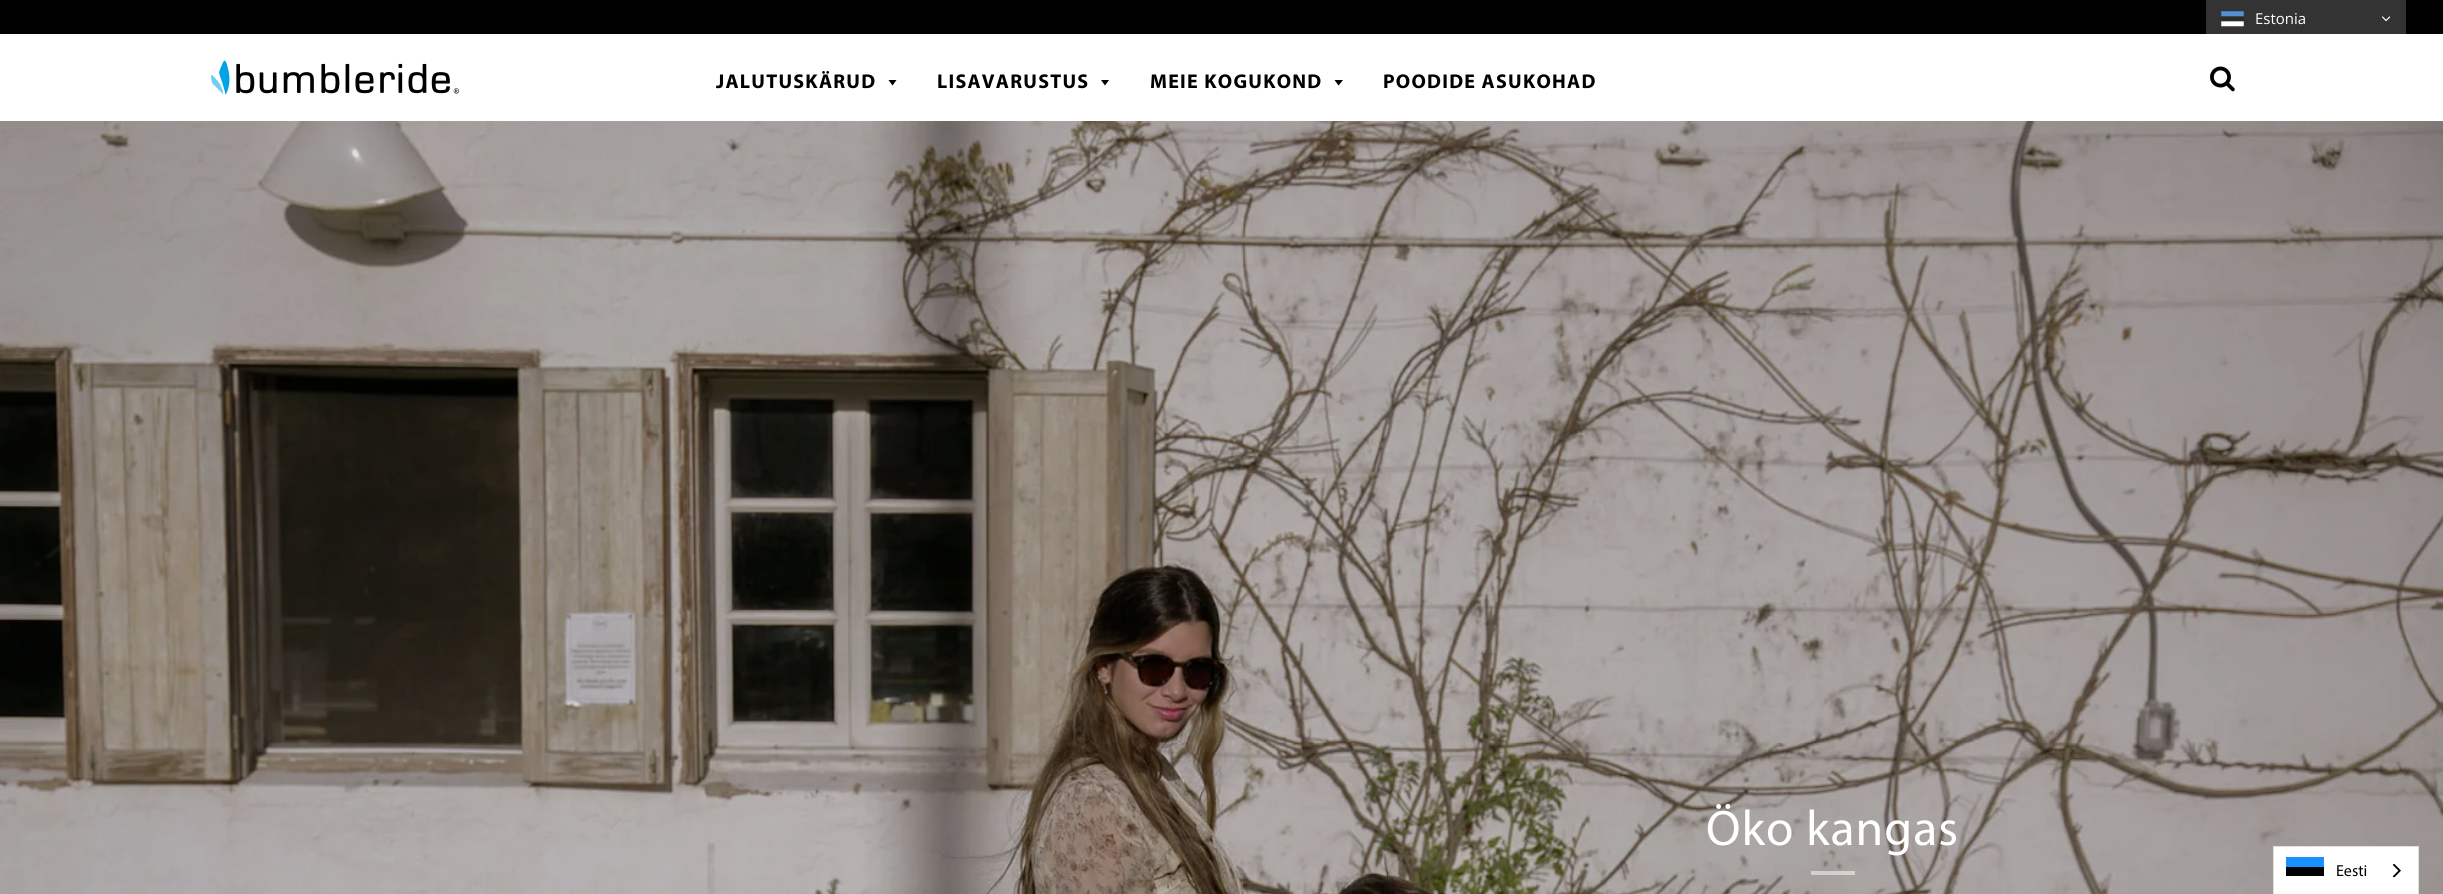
import math
import cairo

surface = cairo.ImageSurface(cairo.FORMAT_RGB24, 2443, 894)
ctx = cairo.Context(surface)
options = cairo.FontOptions()
options.set_hint_metrics(cairo.HINT_METRICS_OFF)
options.set_hint_style(cairo.HINT_STYLE_NONE)
ctx.set_font_options(options)
ctx.set_miter_limit(4)


def spaced_text(x, y, s, letter, word):
    ctx.move_to(x, y)
    for ch in s:
        ctx.show_text(ch)
        ctx.rel_move_to(letter + word * (ch == ' '), 0)


def picture(path, x, y, w, h):
    ctx.save()
    ctx.set_source_surface(cairo.ImageSurface.create_from_png(path), x, y)
    ctx.rectangle(x, y, w, h)
    ctx.fill()
    ctx.restore()


ctx.set_source_rgb(0, 0, 0)
ctx.paint()
ctx.set_source_rgb(0.2, 0.2, 0.2)
ctx.rectangle(2206, 0, 200, 34)
ctx.fill()
picture("img1.png", 2221, 11, 23, 16)
ctx.select_font_face("Open Sans")
ctx.set_font_size(15)
ctx.set_source_rgb(1, 1, 1)
ctx.move_to(2255, 24)
ctx.show_text("Estonia")
picture("img2.png", 2382, 16, 9, 6)
ctx.rectangle(0, 34, 2443, 87)
ctx.fill()
picture("img3.png", 211, 60, 248, 35)
ctx.select_font_face("Myriad", cairo.FONT_SLANT_NORMAL, cairo.FONT_WEIGHT_BOLD)
ctx.set_font_size(20)
ctx.set_source_rgb(0, 0, 0)
spaced_text(716, 88, "JALUTUSKÄRUD", 1.25, 0)
ctx.new_path()
ctx.move_to(888.5, 80)
ctx.line_to(892.5, 85.5)
ctx.line_to(896.5, 80)
ctx.close_path()
ctx.fill()
spaced_text(937, 88, "LISAVARUSTUS", 1.25, 0)
ctx.new_path()
ctx.move_to(1101, 80)
ctx.line_to(1105, 85.5)
ctx.line_to(1109, 80)
ctx.close_path()
ctx.fill()
spaced_text(1150, 88, "MEIE KOGUKOND", 1.25, 0)
ctx.new_path()
ctx.move_to(1334.5, 80)
ctx.line_to(1338.5, 85.5)
ctx.line_to(1343, 80)
ctx.close_path()
ctx.fill()
spaced_text(1383, 88, "POODIDE ASUKOHAD", 1.25, 0)
picture("img4.png", 2210, 66, 25, 26)
picture("img5.png", 0, 121, 2443, 773)
ctx.select_font_face("Myriad")
ctx.set_font_size(50)
ctx.set_source_rgb(1, 1, 1)
spaced_text(1706, 845, "Öko kangas", 1, 0)
ctx.set_source_rgba(1, 1, 1, 0.5)
ctx.rectangle(1811, 871, 44, 4)
ctx.fill()
ctx.set_source_rgb(1, 1, 1)
ctx.rectangle(2273.5, 846.5, 145, 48)
ctx.fill_preserve()
ctx.set_source_rgb(0.878, 0.878, 0.878)
ctx.set_line_width(1)
ctx.stroke()
ctx.set_source_rgb(0.09, 0.569, 1)
ctx.rectangle(2286, 857, 38, 10)
ctx.fill()
ctx.set_source_rgb(0, 0, 0.004)
ctx.rectangle(2286, 867, 38, 9)
ctx.fill()
ctx.set_font_size(16)
ctx.set_source_rgb(0, 0, 0)
ctx.move_to(2336, 876)
ctx.show_text("Eesti")
picture("img6.png", 2392, 864, 9, 14)
surface.write_to_png("page.png")
